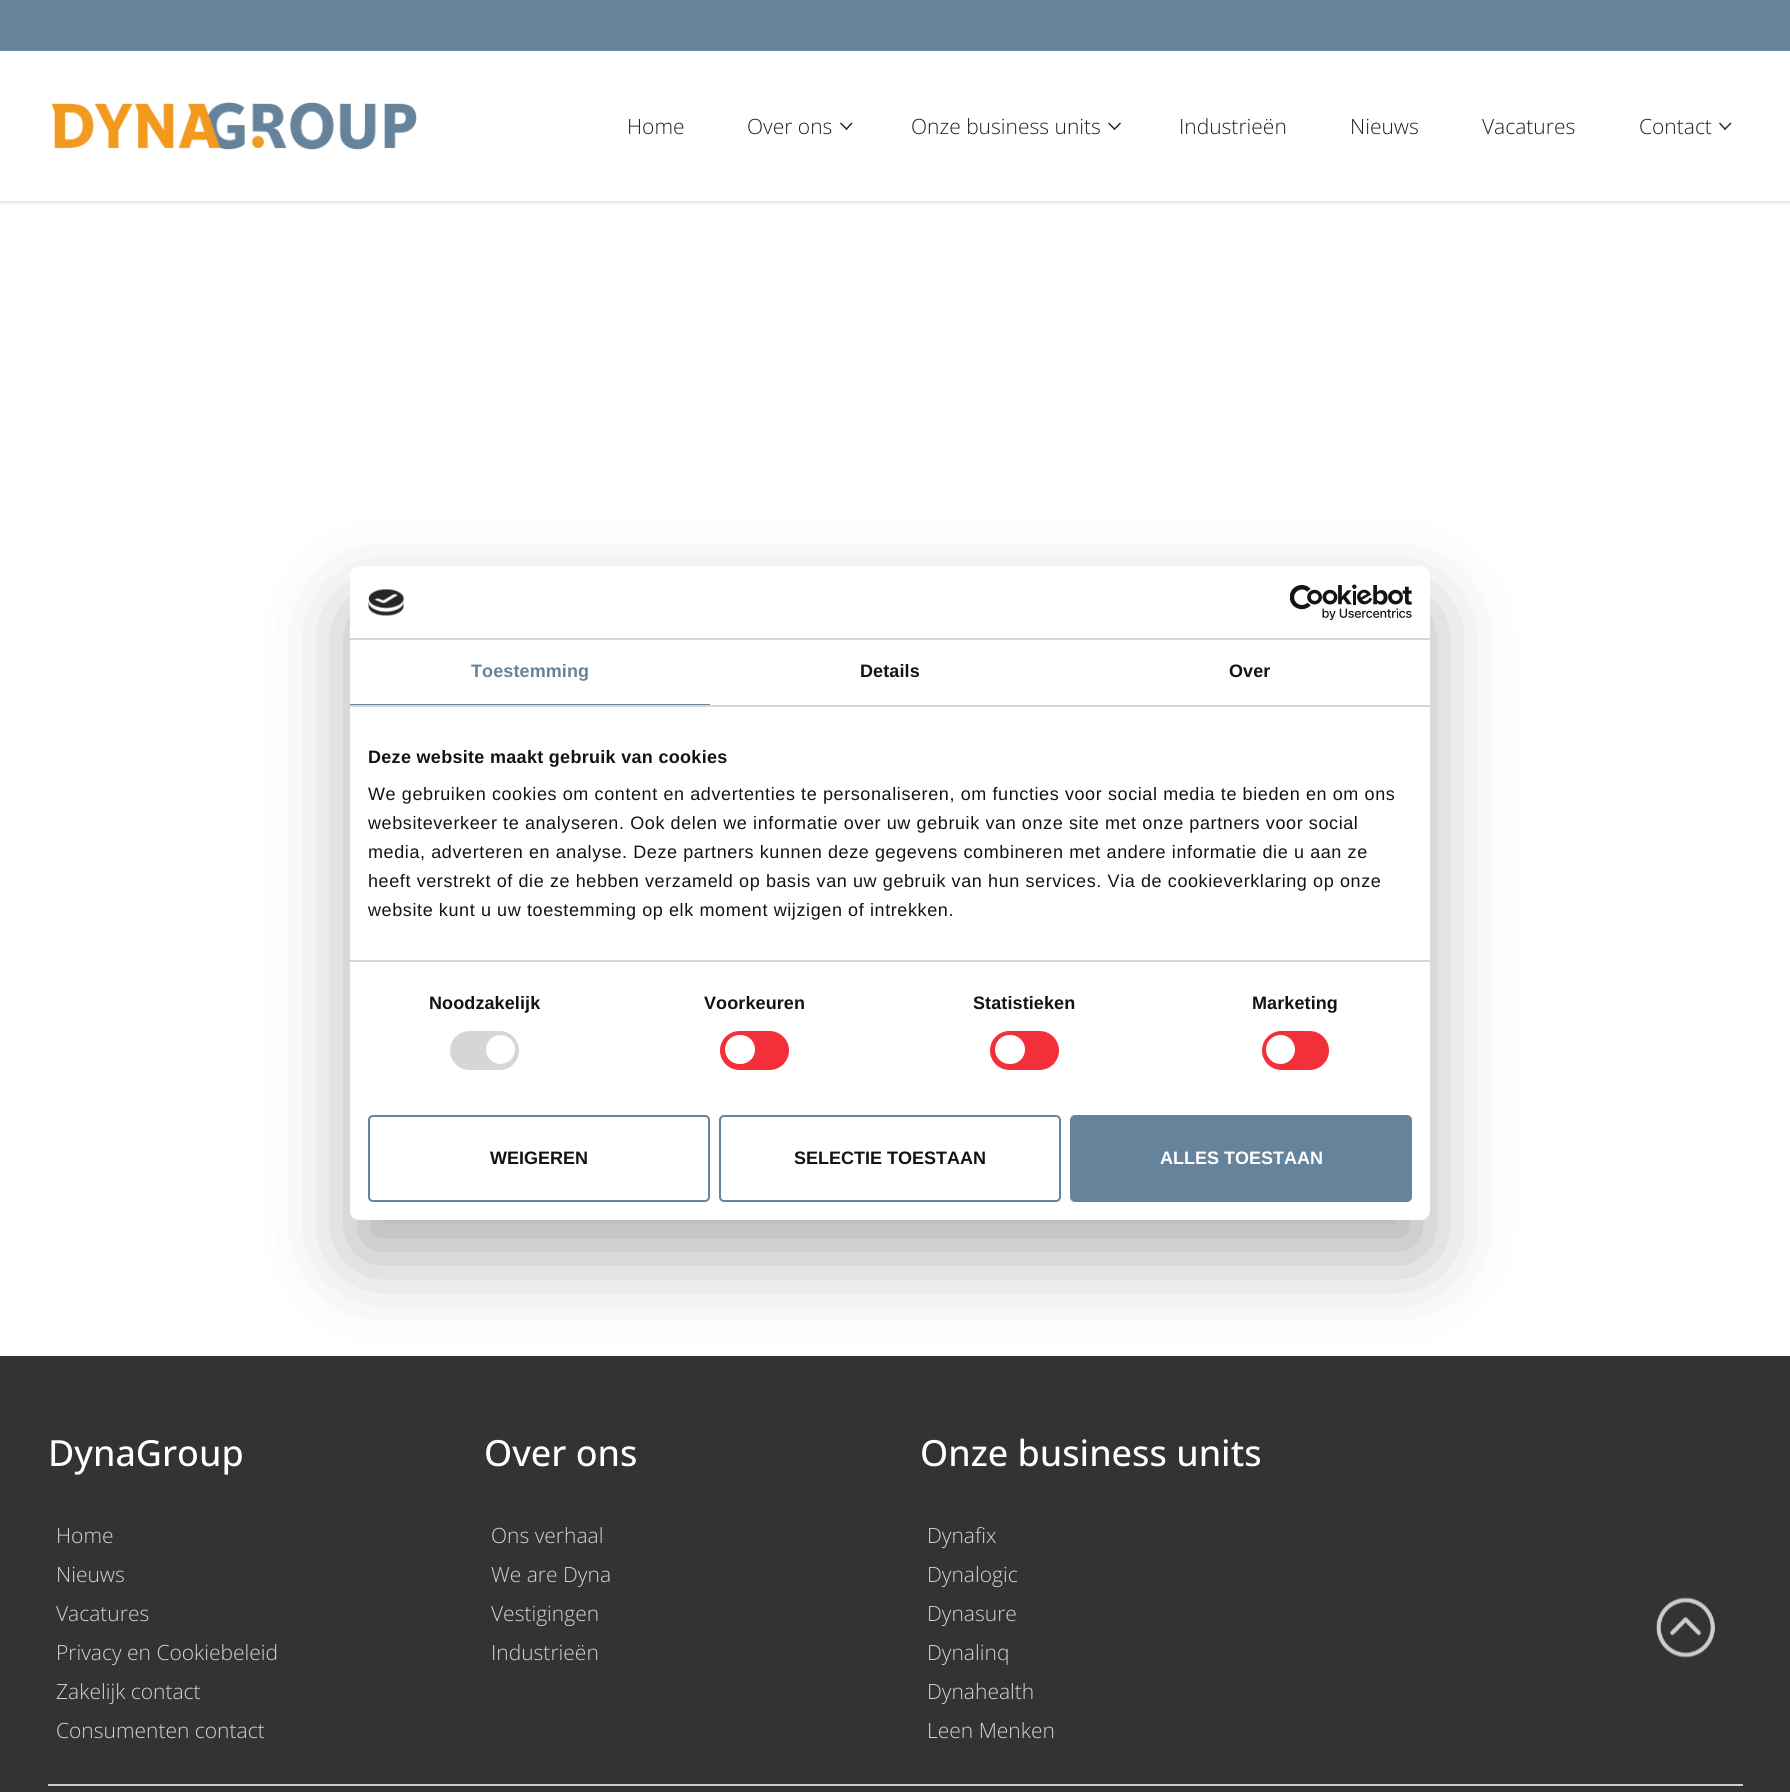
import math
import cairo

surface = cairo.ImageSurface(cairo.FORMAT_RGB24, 1790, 1792)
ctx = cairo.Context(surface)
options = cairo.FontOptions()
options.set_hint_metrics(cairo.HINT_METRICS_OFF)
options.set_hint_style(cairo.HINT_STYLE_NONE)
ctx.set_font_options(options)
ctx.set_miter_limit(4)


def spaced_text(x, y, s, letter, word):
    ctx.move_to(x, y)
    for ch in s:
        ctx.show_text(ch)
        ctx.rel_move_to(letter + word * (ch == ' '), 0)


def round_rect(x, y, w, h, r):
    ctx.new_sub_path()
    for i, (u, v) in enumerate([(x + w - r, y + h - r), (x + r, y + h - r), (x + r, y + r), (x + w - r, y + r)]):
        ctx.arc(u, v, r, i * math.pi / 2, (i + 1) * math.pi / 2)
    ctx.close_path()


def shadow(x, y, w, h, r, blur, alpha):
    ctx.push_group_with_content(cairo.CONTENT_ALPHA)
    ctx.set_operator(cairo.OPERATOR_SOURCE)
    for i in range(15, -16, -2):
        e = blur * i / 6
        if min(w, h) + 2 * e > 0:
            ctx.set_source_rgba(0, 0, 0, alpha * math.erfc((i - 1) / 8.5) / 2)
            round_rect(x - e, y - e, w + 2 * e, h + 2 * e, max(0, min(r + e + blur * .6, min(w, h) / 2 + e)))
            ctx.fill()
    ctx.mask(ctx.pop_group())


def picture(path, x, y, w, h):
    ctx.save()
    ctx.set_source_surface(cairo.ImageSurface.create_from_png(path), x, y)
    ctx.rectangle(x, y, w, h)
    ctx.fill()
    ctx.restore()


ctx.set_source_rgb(1, 1, 1)
ctx.paint()
ctx.set_source_rgb(0.4, 0.514, 0.612)
ctx.rectangle(0, 0, 1790, 51)
ctx.fill()
ctx.save()
ctx.set_fill_rule(cairo.FILL_RULE_EVEN_ODD)
ctx.new_path()
ctx.move_to(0, 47)
ctx.line_to(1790, 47)
ctx.line_to(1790, 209)
ctx.line_to(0, 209)
ctx.close_path()
ctx.move_to(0, 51)
ctx.line_to(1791, 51)
ctx.line_to(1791, 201)
ctx.line_to(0, 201)
ctx.close_path()
ctx.clip()
ctx.set_source_rgb(0.882, 0.898, 0.918)
shadow(0, 53, 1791, 150, 0, 1.5, 1)
ctx.restore()
picture("img1.png", 51, 102, 366, 48)
ctx.select_font_face("Open Sans Light")
ctx.set_font_size(21)
ctx.set_source_rgb(0.129, 0.129, 0.145)
ctx.move_to(627, 134)
ctx.show_text("Home")
ctx.move_to(747, 134)
ctx.show_text("Over ons")
ctx.new_path()
ctx.move_to(846.5, 130)
ctx.line_to(840, 123.5)
ctx.line_to(841, 122.5)
ctx.line_to(847.5, 129)
ctx.close_path()
ctx.fill()
ctx.new_path()
ctx.move_to(846.5, 130)
ctx.line_to(845.5, 129)
ctx.line_to(851.5, 122.5)
ctx.line_to(852.5, 123.5)
ctx.close_path()
ctx.fill()
ctx.move_to(911, 134)
ctx.show_text("Onze business units")
ctx.new_path()
ctx.move_to(1114.5, 130)
ctx.line_to(1108, 123.5)
ctx.line_to(1109, 122.5)
ctx.line_to(1115.5, 129)
ctx.close_path()
ctx.fill()
ctx.new_path()
ctx.move_to(1114.5, 130)
ctx.line_to(1113.5, 129)
ctx.line_to(1120, 122.5)
ctx.line_to(1121, 123.5)
ctx.close_path()
ctx.fill()
ctx.move_to(1179, 134)
ctx.show_text("Industrieën")
ctx.move_to(1350, 134)
ctx.show_text("Nieuws")
ctx.move_to(1482, 134)
ctx.show_text("Vacatures")
ctx.move_to(1639, 134)
ctx.show_text("Contact")
ctx.new_path()
ctx.move_to(1725, 130)
ctx.line_to(1719, 123.5)
ctx.line_to(1720, 122.5)
ctx.line_to(1726, 129)
ctx.close_path()
ctx.fill()
ctx.new_path()
ctx.move_to(1725, 130)
ctx.line_to(1724, 129)
ctx.line_to(1730.5, 122.5)
ctx.line_to(1731.5, 123.5)
ctx.close_path()
ctx.fill()
ctx.set_source_rgb(0.2, 0.2, 0.2)
ctx.rectangle(0, 1356, 1790, 436)
ctx.fill()
ctx.select_font_face("Open Sans Medium")
ctx.set_font_size(36)
ctx.set_source_rgb(1, 1, 1)
ctx.move_to(48, 1466)
ctx.show_text("DynaGroup")
ctx.select_font_face("Open Sans Light")
ctx.set_font_size(21)
ctx.set_source_rgb(0.831, 0.831, 0.831)
ctx.move_to(56, 1543)
ctx.show_text("Home")
ctx.move_to(56, 1582)
ctx.show_text("Nieuws")
ctx.move_to(56, 1621)
ctx.show_text("Vacatures")
ctx.move_to(56, 1660)
ctx.show_text("Privacy en Cookiebeleid")
ctx.move_to(56, 1699)
ctx.show_text("Zakelijk contact")
ctx.move_to(56, 1738)
ctx.show_text("Consumenten contact")
ctx.select_font_face("Open Sans Medium")
ctx.set_font_size(36)
ctx.set_source_rgb(1, 1, 1)
ctx.move_to(484, 1466)
ctx.show_text("Over ons")
ctx.select_font_face("Open Sans Light")
ctx.set_font_size(21)
ctx.set_source_rgb(0.831, 0.831, 0.831)
ctx.move_to(491, 1543)
ctx.show_text("Ons verhaal")
ctx.move_to(491, 1582)
ctx.show_text("We are Dyna")
ctx.move_to(491, 1621)
ctx.show_text("Vestigingen")
ctx.move_to(491, 1660)
ctx.show_text("Industrieën")
ctx.select_font_face("Open Sans Medium")
ctx.set_font_size(36)
ctx.set_source_rgb(1, 1, 1)
ctx.move_to(920, 1466)
ctx.show_text("Onze business units")
ctx.select_font_face("Open Sans Light")
ctx.set_font_size(21)
ctx.set_source_rgb(0.831, 0.831, 0.831)
ctx.move_to(927, 1543)
ctx.show_text("Dynafix")
ctx.move_to(927, 1582)
ctx.show_text("Dynalogic")
ctx.move_to(927, 1621)
ctx.show_text("Dynasure")
ctx.move_to(927, 1660)
ctx.show_text("Dynalinq")
ctx.move_to(927, 1699)
ctx.show_text("Dynahealth")
ctx.move_to(927, 1738)
ctx.show_text("Leen Menken")
picture("img2.png", 1656, 1597, 59, 61)
ctx.set_source_rgb(0.8, 0.8, 0.8)
ctx.rectangle(48, 1784, 1695, 2)
ctx.fill()
ctx.set_source_rgb(0, 0, 0)
shadow(350, 605, 1080, 654, 9, 41, 0.3)
ctx.set_source_rgb(1, 1, 1)
round_rect(350, 566, 1080, 654, 9)
ctx.fill()
ctx.set_source_rgb(0.839, 0.839, 0.839)
ctx.rectangle(350, 638, 1080, 2)
ctx.fill()
picture("img3.png", 368, 589, 37, 27)
picture("img4.png", 1290, 584, 122, 36)
ctx.rectangle(350, 705, 1080, 2)
ctx.fill()
ctx.set_source_rgb(0.4, 0.514, 0.612)
ctx.rectangle(350, 704, 360, 1)
ctx.fill()
ctx.select_font_face("Liberation Sans", cairo.FONT_SLANT_NORMAL, cairo.FONT_WEIGHT_BOLD)
ctx.set_font_size(18)
spaced_text(471, 677, "Toestemming", 0.1, 0)
ctx.set_source_rgb(0.078, 0.078, 0.078)
spaced_text(860, 677, "Details", 0.1, 0)
spaced_text(1229, 677, "Over", 0.1, 0)
ctx.set_source_rgb(0.839, 0.839, 0.839)
ctx.rectangle(350, 960, 1080, 2)
ctx.fill()
ctx.set_source_rgb(0.078, 0.078, 0.078)
spaced_text(368, 763, "Deze website maakt gebruik van cookies", 0.3, 0)
ctx.select_font_face("Liberation Sans")
spaced_text(368, 800, "We gebruiken cookies om content en advertenties te personaliseren, om functies voor social media te bieden en om ons", 0.6, 0)
spaced_text(368, 829, "websiteverkeer te analyseren. Ook delen we informatie over uw gebruik van onze site met onze partners voor social", 0.6, 0)
spaced_text(368, 858, "media, adverteren en analyse. Deze partners kunnen deze gegevens combineren met andere informatie die u aan ze", 0.6, 0)
spaced_text(368, 887, "heeft verstrekt of die ze hebben verzameld op basis van uw gebruik van hun services. Via de cookieverklaring op onze", 0.6, 0)
spaced_text(368, 916, "website kunt u uw toestemming op elk moment wijzigen of intrekken.", 0.6, 0)
ctx.select_font_face("Liberation Sans", cairo.FONT_SLANT_NORMAL, cairo.FONT_WEIGHT_BOLD)
spaced_text(429, 1009, "Noodzakelijk", 0.1, 0)
ctx.set_source_rgb(0.839, 0.839, 0.839)
round_rect(450, 1031, 69, 39, 19.5)
ctx.fill()
ctx.set_source_rgb(1, 1, 1)
ctx.arc(500.5, 1049.5, 14.5, 0, 2 * math.pi)
ctx.fill()
ctx.set_source_rgb(0.078, 0.078, 0.078)
spaced_text(704, 1009, "Voorkeuren", 0.1, 0)
ctx.set_source_rgb(0.953, 0.188, 0.224)
round_rect(720, 1031, 69, 39, 19.5)
ctx.fill()
ctx.set_source_rgb(1, 1, 1)
round_rect(725, 1035, 30, 29, 14.5)
ctx.fill()
ctx.set_source_rgb(0.078, 0.078, 0.078)
spaced_text(973, 1009, "Statistieken", 0.1, 0)
ctx.set_source_rgb(0.953, 0.188, 0.224)
round_rect(990, 1031, 69, 39, 19.5)
ctx.fill()
ctx.set_source_rgb(1, 1, 1)
round_rect(995, 1035, 30, 29, 14.5)
ctx.fill()
ctx.set_source_rgb(0.078, 0.078, 0.078)
spaced_text(1252, 1009, "Marketing", 0.1, 0)
ctx.set_source_rgb(0.953, 0.188, 0.224)
round_rect(1262, 1031, 67, 39, 19.5)
ctx.fill()
ctx.set_source_rgb(1, 1, 1)
ctx.arc(1280.5, 1049.5, 14.5, 0, 2 * math.pi)
ctx.fill()
round_rect(369, 1116, 340, 85, 4)
ctx.set_source_rgb(0.4, 0.514, 0.612)
ctx.stroke()
ctx.set_source_rgb(0.078, 0.078, 0.078)
ctx.move_to(490, 1164)
ctx.show_text("WEIGEREN")
round_rect(720, 1116, 340, 85, 4)
ctx.set_source_rgb(0.4, 0.514, 0.612)
ctx.stroke()
ctx.set_source_rgb(0.078, 0.078, 0.078)
ctx.move_to(794, 1164)
ctx.show_text("SELECTIE TOESTAAN")
ctx.set_source_rgb(0.4, 0.514, 0.612)
round_rect(1071, 1116, 340, 85, 4)
ctx.fill_preserve()
ctx.stroke()
ctx.set_source_rgb(1, 1, 1)
ctx.move_to(1160, 1164)
ctx.show_text("ALLES TOESTAAN")
surface.write_to_png("page.png")
